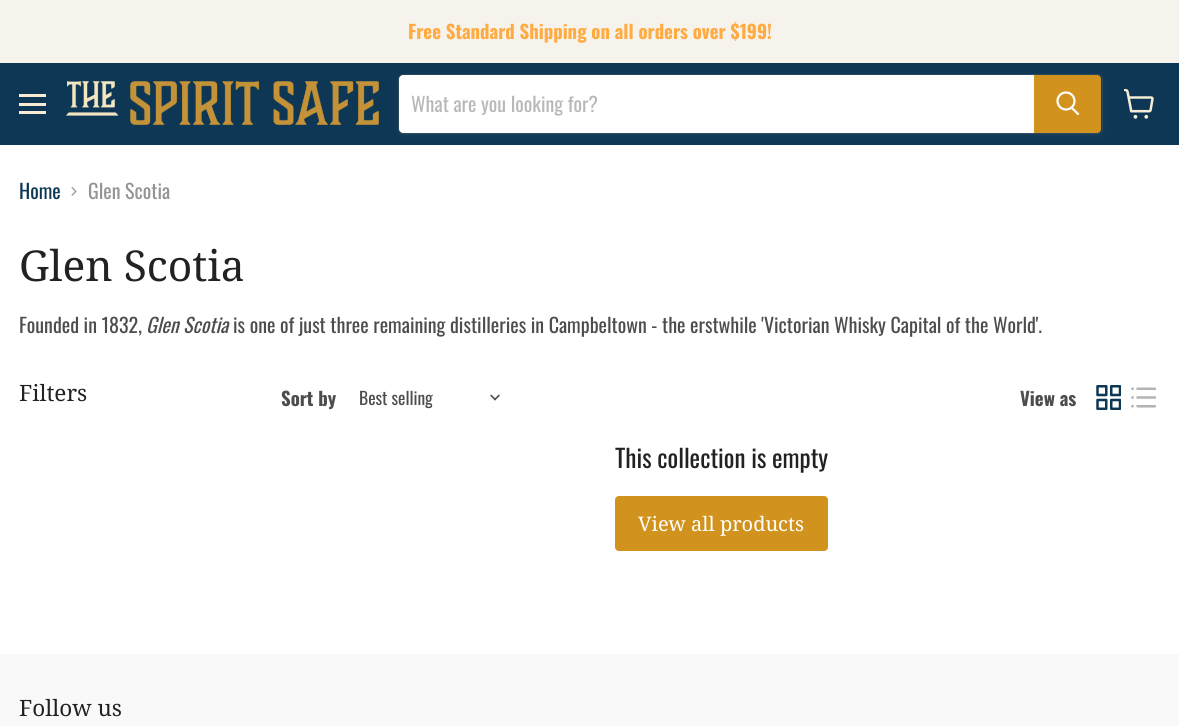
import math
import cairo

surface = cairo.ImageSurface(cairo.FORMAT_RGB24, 1179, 726)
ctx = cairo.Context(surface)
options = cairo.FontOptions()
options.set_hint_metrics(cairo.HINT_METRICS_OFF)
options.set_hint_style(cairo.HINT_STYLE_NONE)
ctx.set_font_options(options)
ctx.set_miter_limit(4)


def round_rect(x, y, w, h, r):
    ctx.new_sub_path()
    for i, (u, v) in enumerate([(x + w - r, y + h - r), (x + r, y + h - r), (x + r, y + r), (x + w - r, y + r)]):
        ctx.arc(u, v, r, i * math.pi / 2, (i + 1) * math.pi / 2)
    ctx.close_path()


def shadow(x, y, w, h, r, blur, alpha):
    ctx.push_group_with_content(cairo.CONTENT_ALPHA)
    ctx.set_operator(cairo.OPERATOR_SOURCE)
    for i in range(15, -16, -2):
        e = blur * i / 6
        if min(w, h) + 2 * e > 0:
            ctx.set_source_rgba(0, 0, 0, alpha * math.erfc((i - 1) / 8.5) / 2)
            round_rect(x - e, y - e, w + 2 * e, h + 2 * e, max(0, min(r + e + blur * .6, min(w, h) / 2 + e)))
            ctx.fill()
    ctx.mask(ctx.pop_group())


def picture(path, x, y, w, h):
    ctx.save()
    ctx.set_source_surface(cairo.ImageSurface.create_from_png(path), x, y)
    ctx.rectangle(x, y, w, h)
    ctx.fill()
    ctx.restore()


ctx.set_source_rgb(1, 1, 1)
ctx.paint()
ctx.set_source_rgb(0.961, 0.953, 0.929)
ctx.rectangle(0, 0, 1179, 63)
ctx.fill()
ctx.select_font_face("Oswald", cairo.FONT_SLANT_NORMAL, cairo.FONT_WEIGHT_BOLD)
ctx.set_font_size(18.75)
ctx.set_source_rgb(1, 0.671, 0.255)
ctx.move_to(408, 39)
ctx.show_text("Free Standard Shipping on all orders over $199!")
ctx.set_source_rgb(0.051, 0.216, 0.329)
ctx.rectangle(0, 63, 1179, 82)
ctx.fill()
ctx.set_source_rgb(0.969, 0.925, 0.839)
ctx.rectangle(19, 94, 27, 3)
ctx.fill()
ctx.rectangle(19, 103, 27, 3)
ctx.fill()
ctx.rectangle(19, 111, 27, 3)
ctx.fill()
picture("img1.png", 66, 81, 313, 44)
ctx.set_source_rgb(0.502, 0.502, 0.502)
shadow(398, 76, 705, 60, 5, 2, 0.11)
round_rect(398.5, 74.5, 704, 59, 4.5)
ctx.set_source_rgba(0.502, 0.502, 0.502, 0.2)
ctx.set_line_width(1)
ctx.stroke()
ctx.set_source_rgb(1, 1, 1)
ctx.new_path()
ctx.move_to(403, 75)
ctx.line_to(1034, 75)
ctx.line_to(1034, 133)
ctx.line_to(403, 133)
ctx.curve_to(401, 133, 399, 131, 399, 129)
ctx.line_to(399, 79)
ctx.curve_to(399, 77, 401, 75, 403, 75)
ctx.close_path()
ctx.fill()
ctx.select_font_face("Oswald")
ctx.set_font_size(20)
ctx.set_source_rgb(0.722, 0.722, 0.722)
ctx.move_to(411, 112)
ctx.show_text("What are you looking for?")
ctx.set_source_rgb(0.82, 0.573, 0.118)
ctx.new_path()
ctx.move_to(1034.5, 75.5)
ctx.line_to(1097, 75.5)
ctx.curve_to(1099, 75.5, 1100.5, 77, 1100.5, 79)
ctx.line_to(1100.5, 129)
ctx.curve_to(1100.5, 131, 1099, 132.5, 1097, 132.5)
ctx.line_to(1034.5, 132.5)
ctx.close_path()
ctx.fill_preserve()
ctx.stroke()
ctx.new_path()
ctx.move_to(1078, 114)
ctx.line_to(1072, 108)
ctx.set_source_rgb(1, 1, 1)
ctx.set_line_width(2.2)
ctx.set_line_cap(cairo.LINE_CAP_ROUND)
ctx.stroke()
ctx.arc(1066, 101, 8.5, 0, 2 * math.pi)
ctx.set_line_cap(cairo.LINE_CAP_BUTT)
ctx.stroke()
picture("img2.png", 1124, 89, 30, 30)
ctx.set_source_rgb(0.051, 0.216, 0.329)
ctx.move_to(19, 199)
ctx.show_text("Home")
picture("img3.png", 71, 186, 6, 10)
ctx.set_source_rgb(0.58, 0.58, 0.58)
ctx.move_to(88, 199)
ctx.show_text("Glen Scotia")
ctx.select_font_face("Noto Serif")
ctx.set_font_size(42.5)
ctx.set_source_rgb(0.133, 0.133, 0.133)
ctx.move_to(19, 281)
ctx.show_text("Glen Scotia")
ctx.select_font_face("Oswald")
ctx.set_font_size(20)
ctx.set_source_rgb(0.302, 0.302, 0.302)
ctx.move_to(19, 333)
ctx.show_text("Founded in 1832,")
ctx.select_font_face("Oswald", cairo.FONT_SLANT_ITALIC)
ctx.move_to(146, 333)
ctx.show_text("Glen Scotia")
ctx.select_font_face("Oswald")
ctx.move_to(233, 333)
ctx.show_text("is one of just three remaining distilleries in Campbeltown - the erstwhile 'Victorian Whisky Capital of the World'.")
ctx.select_font_face("Noto Serif")
ctx.set_font_size(22.5)
ctx.set_source_rgb(0.133, 0.133, 0.133)
ctx.move_to(19, 401)
ctx.show_text("Filters")
ctx.select_font_face("Oswald", cairo.FONT_SLANT_NORMAL, cairo.FONT_WEIGHT_BOLD)
ctx.set_font_size(18.75)
ctx.set_source_rgb(0.302, 0.302, 0.302)
ctx.move_to(281, 406)
ctx.show_text("Sort by")
ctx.select_font_face("Oswald")
ctx.set_font_size(17.5)
ctx.move_to(359, 405)
ctx.show_text("Best selling")
picture("img4.png", 490, 394, 10, 7)
ctx.select_font_face("Oswald", cairo.FONT_SLANT_NORMAL, cairo.FONT_WEIGHT_BOLD)
ctx.set_font_size(18.75)
ctx.move_to(1020, 406)
ctx.show_text("View as")
picture("img5.png", 1096, 385, 25, 25)
picture("img6.png", 1131, 387, 25, 21)
ctx.select_font_face("Oswald")
ctx.set_font_size(25)
ctx.set_source_rgb(0.133, 0.133, 0.133)
ctx.move_to(615, 468)
ctx.show_text("This collection is empty")
ctx.set_source_rgb(0.82, 0.573, 0.118)
round_rect(615.5, 496.5, 212, 54, 3.5)
ctx.fill_preserve()
ctx.set_line_width(1)
ctx.stroke()
ctx.select_font_face("Noto Serif")
ctx.set_font_size(20)
ctx.set_source_rgb(1, 1, 1)
ctx.move_to(638, 531)
ctx.show_text("View all products")
ctx.set_source_rgb(0.973, 0.973, 0.973)
ctx.rectangle(0, 654, 1179, 72)
ctx.fill()
ctx.set_font_size(22.5)
ctx.set_source_rgb(0.133, 0.133, 0.133)
ctx.move_to(19, 716)
ctx.show_text("Follow us")
surface.write_to_png("page.png")
